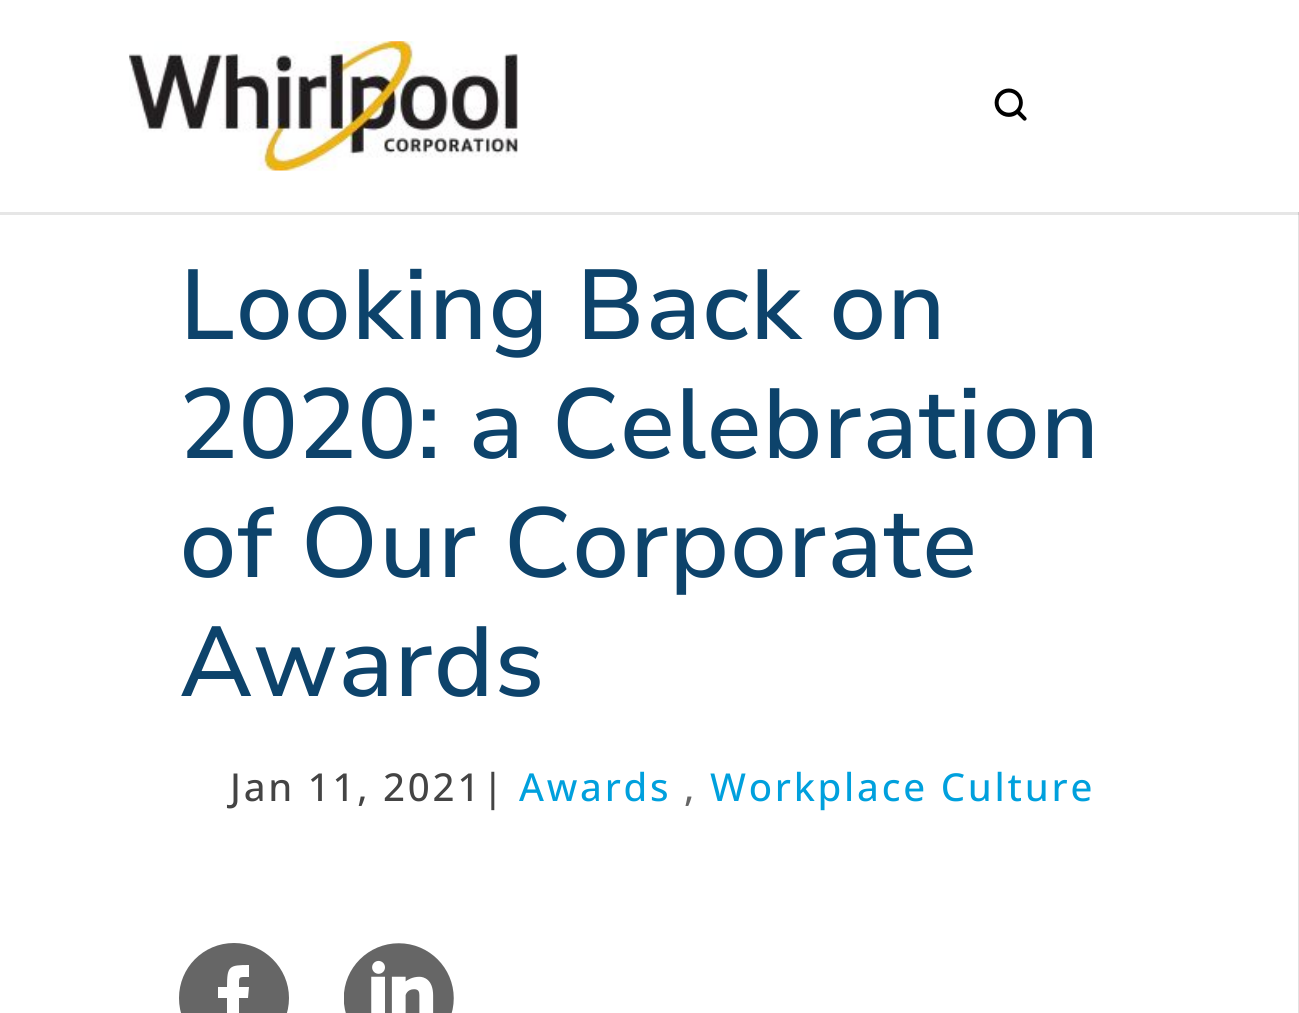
import math
import cairo

surface = cairo.ImageSurface(cairo.FORMAT_RGB24, 1299, 1013)
ctx = cairo.Context(surface)
options = cairo.FontOptions()
options.set_hint_metrics(cairo.HINT_METRICS_OFF)
options.set_hint_style(cairo.HINT_STYLE_NONE)
ctx.set_font_options(options)
ctx.set_miter_limit(4)


def spaced_text(x, y, s, letter, word):
    ctx.move_to(x, y)
    for ch in s:
        ctx.show_text(ch)
        ctx.rel_move_to(letter + word * (ch == ' '), 0)


def picture(path, x, y, w, h):
    ctx.save()
    ctx.set_source_surface(cairo.ImageSurface.create_from_png(path), x, y)
    ctx.rectangle(x, y, w, h)
    ctx.fill()
    ctx.restore()


ctx.set_source_rgb(1, 1, 1)
ctx.paint()
ctx.set_source_rgb(0.886, 0.886, 0.886)
ctx.rectangle(1298, 212, 1, 801)
ctx.fill()
ctx.set_source_rgba(0, 0, 0, 0.1)
ctx.new_path()
ctx.move_to(0, 212)
ctx.line_to(0, 215)
ctx.line_to(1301, 215)
ctx.line_to(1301, 3)
ctx.line_to(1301, 212)
ctx.close_path()
ctx.fill()
picture("img1.png", 129, 41, 389, 130)
picture("img2.png", 994, 88, 33, 33)
ctx.select_font_face("Nunito Sans Medium")
ctx.set_font_size(99)
ctx.set_source_rgb(0.051, 0.263, 0.42)
ctx.move_to(179, 339)
ctx.show_text("Looking Back on")
ctx.move_to(179, 458)
ctx.show_text("2020: a Celebration")
ctx.move_to(179, 577)
ctx.show_text("of Our Corporate")
ctx.move_to(179, 696)
ctx.show_text("Awards")
ctx.select_font_face("Open Sans Medium")
ctx.set_font_size(38.5)
ctx.set_source_rgb(0.267, 0.267, 0.267)
spaced_text(230, 801, "Jan 11, 2021|", 2.75, 0)
ctx.set_source_rgb(0, 0.627, 0.867)
spaced_text(519, 801, "Awards", 2.75, 0)
ctx.set_source_rgb(0.4, 0.4, 0.4)
spaced_text(684, 801, ",", 2.75, 0)
ctx.set_source_rgb(0, 0.627, 0.867)
spaced_text(710, 801, "Workplace Culture", 2.75, 0)
ctx.set_source_rgb(0.4, 0.4, 0.4)
ctx.new_path()
ctx.move_to(234, 943)
ctx.curve_to(203, 943, 179, 968, 179, 998)
ctx.curve_to(179, 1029, 203, 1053, 234, 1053)
ctx.curve_to(264, 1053, 289, 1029, 289, 998)
ctx.curve_to(289, 968, 264, 943, 234, 943)
ctx.close_path()
ctx.move_to(248, 998)
ctx.line_to(239, 998)
ctx.line_to(239, 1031)
ctx.line_to(227, 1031)
ctx.line_to(227, 998)
ctx.line_to(218, 998)
ctx.line_to(218, 987)
ctx.line_to(227, 987)
ctx.curve_to(227, 966, 229, 965, 249, 965)
ctx.line_to(249, 977)
ctx.curve_to(238, 977, 239, 976, 239, 987)
ctx.line_to(249, 987)
ctx.close_path()
ctx.fill()
picture("img3.png", 344, 943, 110, 70)
surface.write_to_png("page.png")
